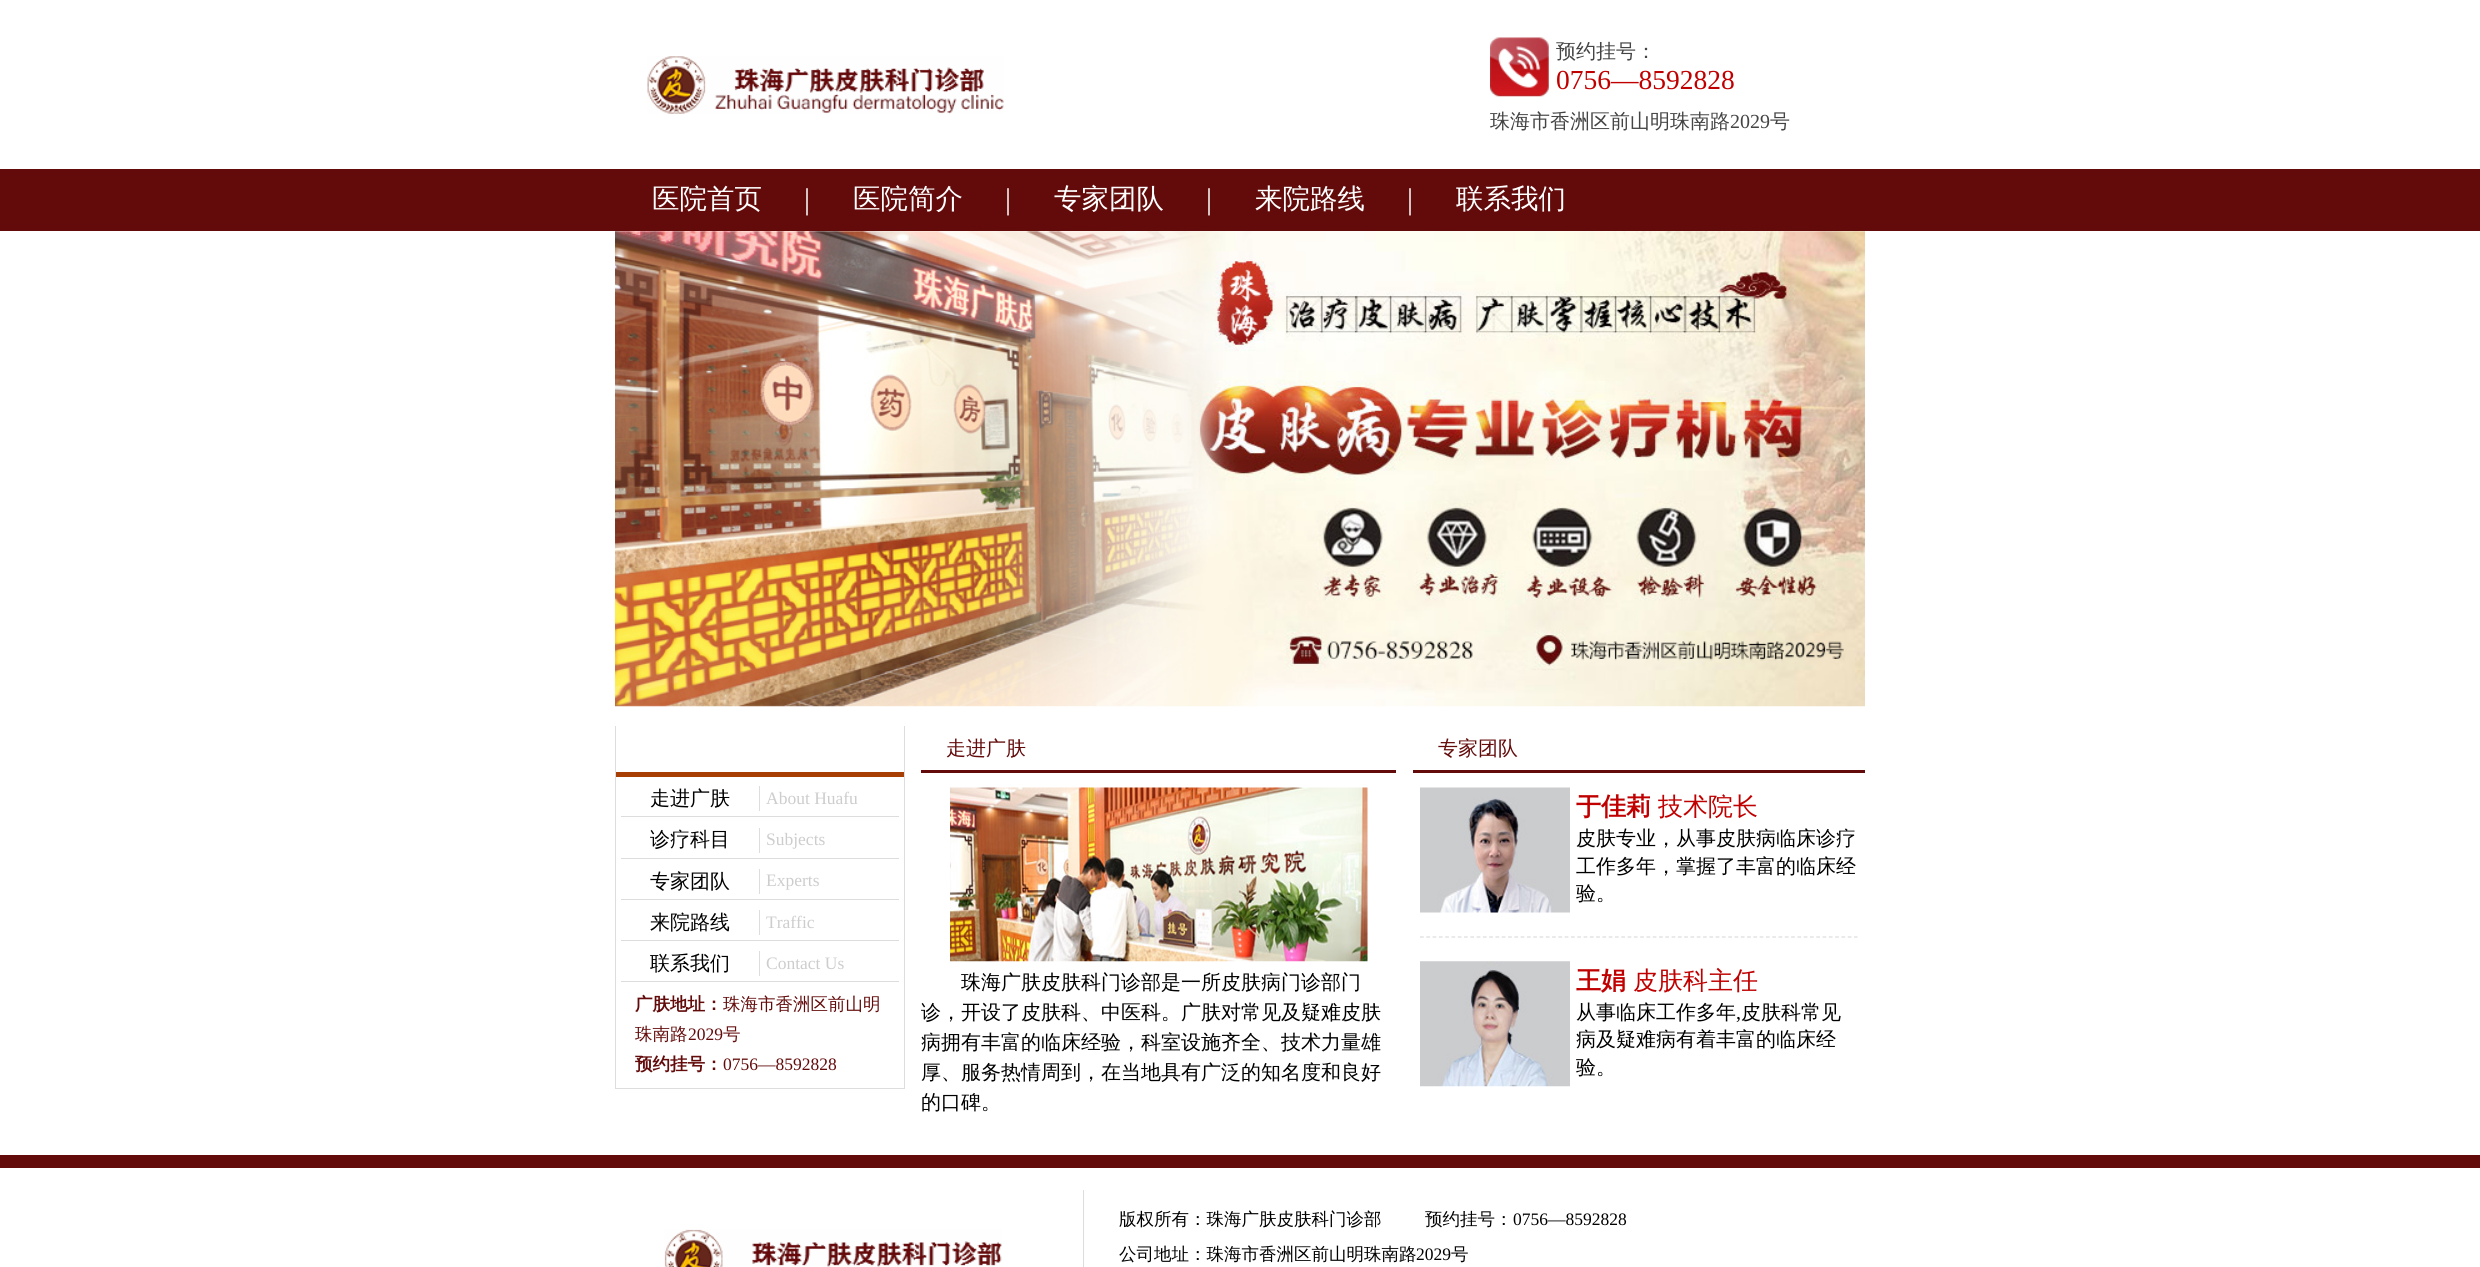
import math
import cairo

surface = cairo.ImageSurface(cairo.FORMAT_RGB24, 2480, 1267)
ctx = cairo.Context(surface)
options = cairo.FontOptions()
options.set_hint_metrics(cairo.HINT_METRICS_OFF)
options.set_hint_style(cairo.HINT_STYLE_NONE)
ctx.set_font_options(options)
ctx.set_miter_limit(4)


def picture(path, x, y, w, h):
    ctx.save()
    ctx.set_source_surface(cairo.ImageSurface.create_from_png(path), x, y)
    ctx.rectangle(x, y, w, h)
    ctx.fill()
    ctx.restore()


ctx.set_source_rgb(1, 1, 1)
ctx.paint()
picture("img1.png", 647, 56, 357, 58)
picture("img2.png", 1490, 37, 59, 60)
ctx.select_font_face("WenQuanYi Zen Hei Medium")
ctx.set_font_size(20)
ctx.set_source_rgb(0.267, 0.267, 0.267)
ctx.move_to(1556, 58)
ctx.show_text("预约挂号：")
ctx.select_font_face("Liberation Serif")
ctx.set_font_size(27.5)
ctx.set_source_rgb(0.753, 0, 0)
ctx.move_to(1556, 89)
ctx.show_text("0756—8592828")
ctx.select_font_face("WenQuanYi Zen Hei Medium")
ctx.set_font_size(20)
ctx.set_source_rgb(0.267, 0.267, 0.267)
ctx.move_to(1490, 128)
ctx.show_text("珠海市香洲区前山明珠南路")
ctx.select_font_face("Liberation Serif")
ctx.move_to(1730, 128)
ctx.show_text("2029")
ctx.select_font_face("WenQuanYi Zen Hei Medium")
ctx.move_to(1770, 128)
ctx.show_text("号")
ctx.set_source_rgb(0.388, 0.043, 0.043)
ctx.rectangle(0, 169, 2480, 62)
ctx.fill()
ctx.set_font_size(27.5)
ctx.set_source_rgb(1, 1, 1)
ctx.move_to(652, 208)
ctx.show_text("医院首页")
ctx.select_font_face("Liberation Serif")
ctx.set_font_size(30)
ctx.move_to(804, 209)
ctx.show_text("|")
ctx.select_font_face("WenQuanYi Zen Hei Medium")
ctx.set_font_size(27.5)
ctx.move_to(853, 208)
ctx.show_text("医院简介")
ctx.select_font_face("Liberation Serif")
ctx.set_font_size(30)
ctx.move_to(1005, 209)
ctx.show_text("|")
ctx.select_font_face("WenQuanYi Zen Hei Medium")
ctx.set_font_size(27.5)
ctx.move_to(1054, 208)
ctx.show_text("专家团队")
ctx.select_font_face("Liberation Serif")
ctx.set_font_size(30)
ctx.move_to(1206, 209)
ctx.show_text("|")
ctx.select_font_face("WenQuanYi Zen Hei Medium")
ctx.set_font_size(27.5)
ctx.move_to(1255, 208)
ctx.show_text("来院路线")
ctx.select_font_face("Liberation Serif")
ctx.set_font_size(30)
ctx.move_to(1407, 209)
ctx.show_text("|")
ctx.select_font_face("WenQuanYi Zen Hei Medium")
ctx.set_font_size(27.5)
ctx.move_to(1456, 208)
ctx.show_text("联系我们")
picture("img3.png", 615, 231, 1250, 476)
ctx.set_source_rgb(0.867, 0.867, 0.867)
ctx.rectangle(904, 726, 1, 363)
ctx.fill()
ctx.rectangle(615, 1088, 290, 1)
ctx.fill()
ctx.rectangle(615, 726, 1, 363)
ctx.fill()
ctx.set_source_rgb(0.655, 0.243, 0.016)
ctx.rectangle(616, 772, 288, 5)
ctx.fill()
ctx.set_source_rgb(0.867, 0.867, 0.867)
ctx.rectangle(621, 816, 278, 1)
ctx.fill()
ctx.rectangle(759, 786, 1, 25)
ctx.fill()
ctx.set_font_size(20)
ctx.set_source_rgb(0, 0, 0)
ctx.move_to(650, 805)
ctx.show_text("走进广肤")
ctx.select_font_face("Liberation Serif")
ctx.set_font_size(17.5)
ctx.set_source_rgb(0.808, 0.804, 0.804)
ctx.move_to(766, 804)
ctx.show_text("About Huafu")
ctx.set_source_rgb(0.867, 0.867, 0.867)
ctx.rectangle(621, 858, 278, 1)
ctx.fill()
ctx.rectangle(759, 828, 1, 25)
ctx.fill()
ctx.select_font_face("WenQuanYi Zen Hei Medium")
ctx.set_font_size(20)
ctx.set_source_rgb(0, 0, 0)
ctx.move_to(650, 846)
ctx.show_text("诊疗科目")
ctx.select_font_face("Liberation Serif")
ctx.set_font_size(17.5)
ctx.set_source_rgb(0.808, 0.804, 0.804)
ctx.move_to(766, 845)
ctx.show_text("Subjects")
ctx.set_source_rgb(0.867, 0.867, 0.867)
ctx.rectangle(621, 899, 278, 1)
ctx.fill()
ctx.rectangle(759, 869, 1, 25)
ctx.fill()
ctx.select_font_face("WenQuanYi Zen Hei Medium")
ctx.set_font_size(20)
ctx.set_source_rgb(0, 0, 0)
ctx.move_to(650, 888)
ctx.show_text("专家团队")
ctx.select_font_face("Liberation Serif")
ctx.set_font_size(17.5)
ctx.set_source_rgb(0.808, 0.804, 0.804)
ctx.move_to(766, 886)
ctx.show_text("Experts")
ctx.set_source_rgb(0.867, 0.867, 0.867)
ctx.rectangle(621, 940, 278, 1)
ctx.fill()
ctx.rectangle(759, 910, 1, 25)
ctx.fill()
ctx.select_font_face("WenQuanYi Zen Hei Medium")
ctx.set_font_size(20)
ctx.set_source_rgb(0, 0, 0)
ctx.move_to(650, 929)
ctx.show_text("来院路线")
ctx.select_font_face("Liberation Serif")
ctx.set_font_size(17.5)
ctx.set_source_rgb(0.808, 0.804, 0.804)
ctx.move_to(766, 928)
ctx.show_text("Traffic")
ctx.set_source_rgb(0.867, 0.867, 0.867)
ctx.rectangle(621, 981, 278, 1)
ctx.fill()
ctx.rectangle(759, 951, 1, 25)
ctx.fill()
ctx.select_font_face("WenQuanYi Zen Hei Medium")
ctx.set_font_size(20)
ctx.set_source_rgb(0, 0, 0)
ctx.move_to(650, 970)
ctx.show_text("联系我们")
ctx.select_font_face("Liberation Serif")
ctx.set_font_size(17.5)
ctx.set_source_rgb(0.808, 0.804, 0.804)
ctx.move_to(766, 969)
ctx.show_text("Contact Us")
ctx.select_font_face("WenQuanYi Zen Hei", cairo.FONT_SLANT_NORMAL, cairo.FONT_WEIGHT_BOLD)
ctx.set_source_rgb(0.388, 0.043, 0.043)
ctx.move_to(635, 1010)
ctx.show_text("广肤地址：")
ctx.select_font_face("WenQuanYi Zen Hei Medium")
ctx.move_to(723, 1010)
ctx.show_text("珠海市香洲区前山明")
ctx.move_to(635, 1040)
ctx.show_text("珠南路")
ctx.select_font_face("Liberation Serif")
ctx.move_to(688, 1040)
ctx.show_text("2029")
ctx.select_font_face("WenQuanYi Zen Hei Medium")
ctx.move_to(723, 1040)
ctx.show_text("号")
ctx.select_font_face("WenQuanYi Zen Hei", cairo.FONT_SLANT_NORMAL, cairo.FONT_WEIGHT_BOLD)
ctx.move_to(635, 1070)
ctx.show_text("预约挂号：")
ctx.select_font_face("Liberation Serif")
ctx.move_to(723, 1070)
ctx.show_text("0756—8592828")
ctx.rectangle(921, 770, 475, 3)
ctx.fill()
ctx.select_font_face("WenQuanYi Zen Hei Medium")
ctx.set_font_size(20)
ctx.move_to(946, 755)
ctx.show_text("走进广肤")
picture("img4.png", 950, 787, 418, 175)
ctx.set_source_rgb(0, 0, 0)
ctx.move_to(961, 989)
ctx.show_text("珠海广肤皮肤科门诊部是一所皮肤病门诊部门")
ctx.move_to(921, 1019)
ctx.show_text("诊，开设了皮肤科、中医科。广肤对常见及疑难皮肤")
ctx.move_to(921, 1049)
ctx.show_text("病拥有丰富的临床经验，科室设施齐全、技术力量雄")
ctx.move_to(921, 1079)
ctx.show_text("厚、服务热情周到，在当地具有广泛的知名度和良好")
ctx.move_to(921, 1109)
ctx.show_text("的口碑。")
ctx.set_source_rgb(0.388, 0.043, 0.043)
ctx.rectangle(1413, 770, 452, 3)
ctx.fill()
ctx.move_to(1438, 755)
ctx.show_text("专家团队")
ctx.new_path()
ctx.move_to(1420, 937)
ctx.line_to(1857.5, 937)
ctx.set_source_rgb(0.867, 0.867, 0.867)
ctx.set_line_width(1.2)
ctx.set_dash([3.75, 2.54])
ctx.stroke()
picture("img5.png", 1420, 787, 150, 126)
ctx.select_font_face("WenQuanYi Zen Hei", cairo.FONT_SLANT_NORMAL, cairo.FONT_WEIGHT_BOLD)
ctx.set_font_size(25)
ctx.set_source_rgb(0.753, 0, 0)
ctx.move_to(1576, 815)
ctx.show_text("于佳莉")
ctx.select_font_face("WenQuanYi Zen Hei Medium")
ctx.move_to(1658, 815)
ctx.show_text("技术院长")
ctx.set_font_size(20)
ctx.set_source_rgb(0, 0, 0)
ctx.move_to(1576, 845)
ctx.show_text("皮肤专业，从事皮肤病临床诊疗")
ctx.move_to(1576, 873)
ctx.show_text("工作多年，掌握了丰富的临床经")
ctx.move_to(1576, 900)
ctx.show_text("验。")
picture("img6.png", 1420, 961, 150, 126)
ctx.select_font_face("WenQuanYi Zen Hei", cairo.FONT_SLANT_NORMAL, cairo.FONT_WEIGHT_BOLD)
ctx.set_font_size(25)
ctx.set_source_rgb(0.753, 0, 0)
ctx.move_to(1576, 989)
ctx.show_text("王娟")
ctx.select_font_face("WenQuanYi Zen Hei Medium")
ctx.move_to(1633, 989)
ctx.show_text("皮肤科主任")
ctx.set_font_size(20)
ctx.set_source_rgb(0, 0, 0)
ctx.move_to(1576, 1019)
ctx.show_text("从事临床工作多年")
ctx.select_font_face("Liberation Serif")
ctx.move_to(1736, 1019)
ctx.show_text(",")
ctx.select_font_face("WenQuanYi Zen Hei Medium")
ctx.move_to(1741, 1019)
ctx.show_text("皮肤科常见")
ctx.move_to(1576, 1046)
ctx.show_text("病及疑难病有着丰富的临床经")
ctx.move_to(1576, 1074)
ctx.show_text("验。")
ctx.set_source_rgb(0.388, 0.043, 0.043)
ctx.rectangle(0, 1155, 2480, 13)
ctx.fill()
picture("img7.png", 664, 1229, 338, 38)
ctx.set_source_rgb(0.867, 0.867, 0.867)
ctx.rectangle(1083, 1190, 1, 77)
ctx.fill()
ctx.set_font_size(17.5)
ctx.set_source_rgb(0, 0, 0)
ctx.move_to(1119, 1225)
ctx.show_text("版权所有：珠海广肤皮肤科门诊部")
ctx.move_to(1425, 1225)
ctx.show_text("预约挂号：")
ctx.select_font_face("Liberation Serif")
ctx.move_to(1513, 1225)
ctx.show_text("0756—8592828")
ctx.select_font_face("WenQuanYi Zen Hei Medium")
ctx.move_to(1119, 1260)
ctx.show_text("公司地址：珠海市香洲区前山明珠南路")
ctx.select_font_face("Liberation Serif")
ctx.move_to(1416, 1260)
ctx.show_text("2029")
ctx.select_font_face("WenQuanYi Zen Hei Medium")
ctx.move_to(1451, 1260)
ctx.show_text("号")
surface.write_to_png("page.png")
